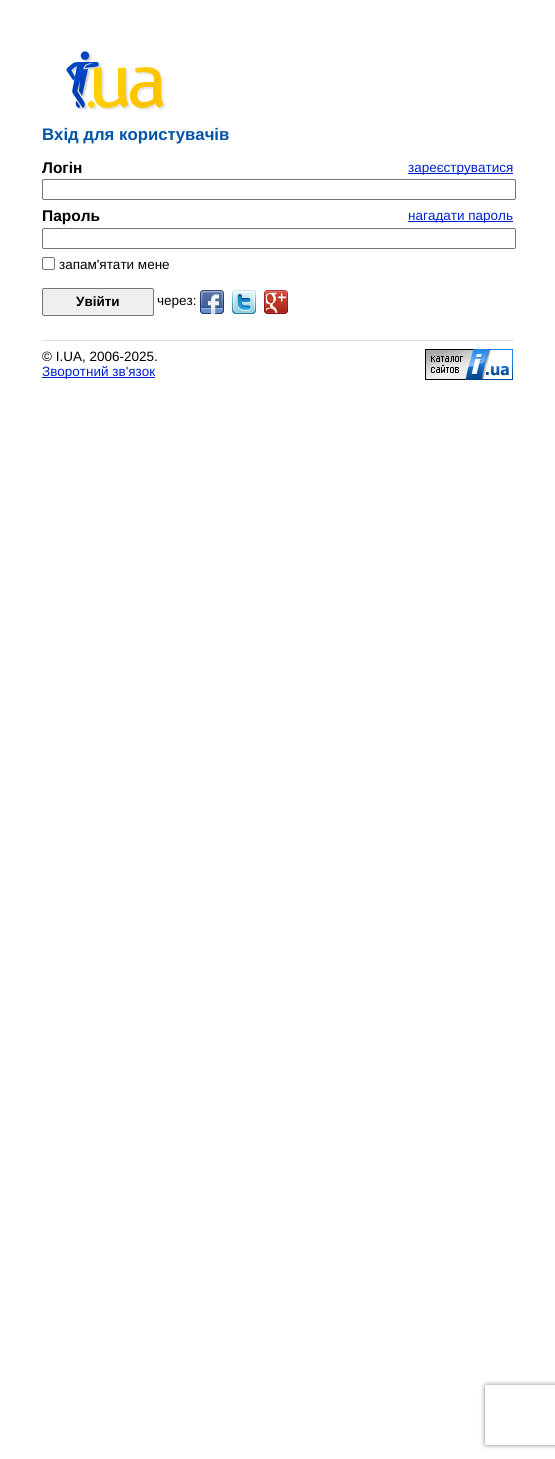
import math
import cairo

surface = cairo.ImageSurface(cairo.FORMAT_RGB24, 555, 1459)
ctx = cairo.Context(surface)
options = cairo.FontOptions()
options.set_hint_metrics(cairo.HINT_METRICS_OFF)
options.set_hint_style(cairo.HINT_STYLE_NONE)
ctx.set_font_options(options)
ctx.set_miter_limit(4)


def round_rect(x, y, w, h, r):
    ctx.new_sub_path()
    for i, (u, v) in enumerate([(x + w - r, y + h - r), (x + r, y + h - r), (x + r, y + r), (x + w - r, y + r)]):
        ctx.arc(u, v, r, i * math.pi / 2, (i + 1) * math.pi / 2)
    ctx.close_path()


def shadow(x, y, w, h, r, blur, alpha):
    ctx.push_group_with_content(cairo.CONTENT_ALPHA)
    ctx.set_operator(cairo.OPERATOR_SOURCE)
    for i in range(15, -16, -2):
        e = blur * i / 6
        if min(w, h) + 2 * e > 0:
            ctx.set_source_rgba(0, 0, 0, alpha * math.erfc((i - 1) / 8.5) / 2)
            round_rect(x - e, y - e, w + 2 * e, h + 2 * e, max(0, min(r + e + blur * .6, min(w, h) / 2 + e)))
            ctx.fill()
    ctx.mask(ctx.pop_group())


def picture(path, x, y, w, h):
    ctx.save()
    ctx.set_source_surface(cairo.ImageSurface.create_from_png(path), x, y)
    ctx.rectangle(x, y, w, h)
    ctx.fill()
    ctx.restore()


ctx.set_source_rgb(1, 1, 1)
ctx.paint()
picture("img1.png", 66, 51, 100, 60)
ctx.select_font_face("Liberation Sans", cairo.FONT_SLANT_NORMAL, cairo.FONT_WEIGHT_BOLD)
ctx.set_font_size(16.75)
ctx.set_source_rgb(0, 0.325, 0.647)
ctx.move_to(42, 140)
ctx.show_text("Вхід для користувачів")
ctx.set_font_size(15.5)
ctx.set_source_rgb(0, 0, 0)
ctx.move_to(42, 173)
ctx.show_text("Логін")
ctx.set_source_rgb(0, 0.133, 0.8)
ctx.rectangle(408, 173, 105, 1)
ctx.fill()
ctx.select_font_face("Liberation Sans")
ctx.set_font_size(13.5)
ctx.move_to(408, 172)
ctx.show_text("зареєструватися")
round_rect(42.5, 179.5, 473, 20, 1.5)
ctx.set_source_rgb(0.463, 0.463, 0.463)
ctx.set_line_width(1)
ctx.stroke()
ctx.select_font_face("Liberation Sans", cairo.FONT_SLANT_NORMAL, cairo.FONT_WEIGHT_BOLD)
ctx.set_font_size(15.5)
ctx.set_source_rgb(0, 0, 0)
ctx.move_to(42, 221)
ctx.show_text("Пароль")
ctx.set_source_rgb(0, 0.133, 0.8)
ctx.rectangle(408, 221, 105, 1)
ctx.fill()
ctx.select_font_face("Liberation Sans")
ctx.set_font_size(13.5)
ctx.move_to(408, 220)
ctx.show_text("нагадати пароль")
round_rect(42.5, 228.5, 473, 20, 1.5)
ctx.set_source_rgb(0.463, 0.463, 0.463)
ctx.stroke()
round_rect(42.5, 257.5, 12, 12, 1.5)
ctx.stroke()
ctx.set_source_rgb(0, 0, 0)
ctx.move_to(59, 269)
ctx.show_text("запам'ятати мене")
ctx.set_source_rgb(0.937, 0.937, 0.937)
round_rect(42.5, 288.5, 111, 27, 1.5)
ctx.fill_preserve()
ctx.set_source_rgb(0.463, 0.463, 0.463)
ctx.stroke()
ctx.select_font_face("Liberation Sans", cairo.FONT_SLANT_NORMAL, cairo.FONT_WEIGHT_BOLD)
ctx.set_source_rgb(0, 0, 0)
ctx.move_to(76, 306)
ctx.show_text("Увійти")
ctx.select_font_face("Liberation Sans")
ctx.move_to(157, 305)
ctx.show_text("через:")
picture("img2.png", 200, 290, 24, 24)
picture("img3.png", 232, 290, 24, 24)
picture("img4.png", 264, 290, 24, 24)
ctx.set_source_rgb(0.867, 0.867, 0.867)
ctx.rectangle(42, 340, 471, 1)
ctx.fill()
ctx.set_source_rgb(0, 0, 0)
ctx.move_to(42, 361)
ctx.show_text("© I.UA, 2006-2025.")
ctx.set_source_rgb(0, 0.133, 0.8)
ctx.rectangle(42, 377, 113, 1)
ctx.fill()
ctx.move_to(42, 376)
ctx.show_text("Зворотний зв'язок")
picture("img5.png", 425, 349, 88, 31)
ctx.save()
ctx.set_fill_rule(cairo.FILL_RULE_EVEN_ODD)
ctx.new_path()
ctx.move_to(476, 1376)
ctx.line_to(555, 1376)
ctx.line_to(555, 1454)
ctx.line_to(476, 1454)
ctx.close_path()
ctx.move_to(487, 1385)
ctx.line_to(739, 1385)
ctx.curve_to(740, 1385, 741, 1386, 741, 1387)
ctx.line_to(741, 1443)
ctx.curve_to(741, 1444, 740, 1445, 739, 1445)
ctx.line_to(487, 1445)
ctx.curve_to(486, 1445, 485, 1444, 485, 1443)
ctx.line_to(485, 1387)
ctx.curve_to(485, 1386, 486, 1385, 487, 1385)
ctx.close_path()
ctx.clip()
ctx.set_source_rgb(0.502, 0.502, 0.502)
shadow(485, 1385, 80, 60, 2, 2.5, 1)
ctx.restore()
surface.write_to_png("page.png")
